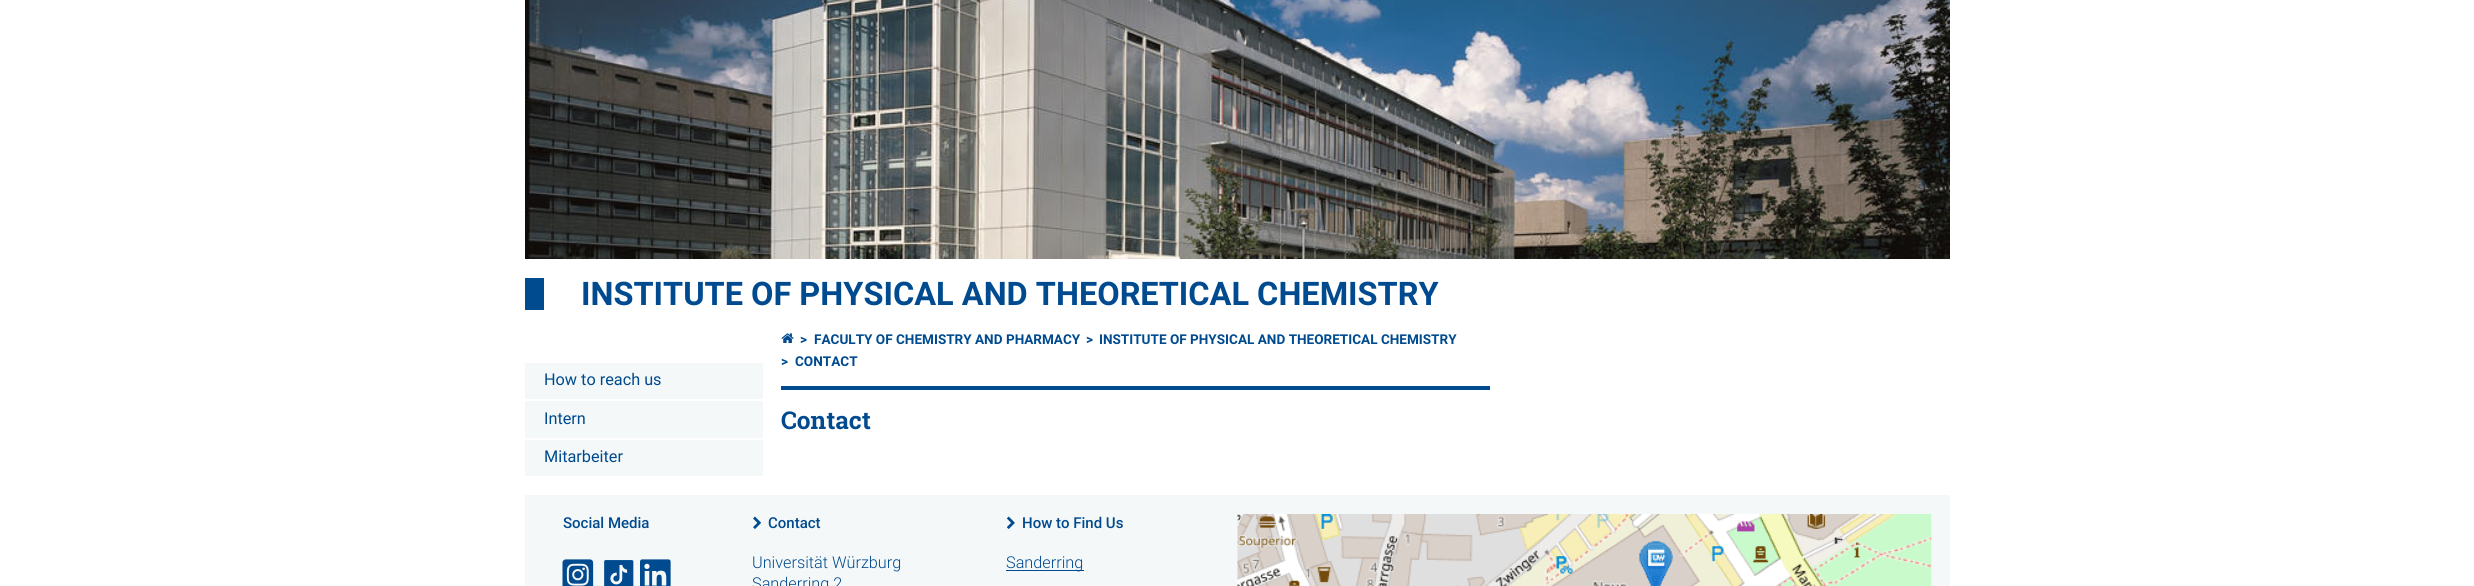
import math
import cairo

surface = cairo.ImageSurface(cairo.FORMAT_RGB24, 2474, 586)
ctx = cairo.Context(surface)
options = cairo.FontOptions()
options.set_hint_metrics(cairo.HINT_METRICS_OFF)
options.set_hint_style(cairo.HINT_STYLE_NONE)
ctx.set_font_options(options)
ctx.set_miter_limit(4)


def picture(path, x, y, w, h):
    ctx.save()
    ctx.set_source_surface(cairo.ImageSurface.create_from_png(path), x, y)
    ctx.rectangle(x, y, w, h)
    ctx.fill()
    ctx.restore()


ctx.set_source_rgb(1, 1, 1)
ctx.paint()
picture("img1.png", 525, 0, 1425, 259)
ctx.set_source_rgb(0, 0.29, 0.561)
ctx.rectangle(525, 278, 19, 32)
ctx.fill()
ctx.select_font_face("Roboto", cairo.FONT_SLANT_NORMAL, cairo.FONT_WEIGHT_BOLD)
ctx.set_font_size(32.5)
ctx.move_to(581, 305)
ctx.show_text("INSTITUTE OF PHYSICAL AND THEORETICAL CHEMISTRY")
ctx.set_source_rgb(0.957, 0.969, 0.969)
ctx.rectangle(525, 363, 238, 36)
ctx.fill()
ctx.select_font_face("Roboto")
ctx.set_font_size(16.25)
ctx.set_source_rgb(0, 0.29, 0.561)
ctx.move_to(544, 385)
ctx.show_text("How to reach us")
ctx.set_source_rgb(0.957, 0.969, 0.969)
ctx.rectangle(525, 401, 238, 37)
ctx.fill()
ctx.set_source_rgb(0, 0.29, 0.561)
ctx.move_to(544, 424)
ctx.show_text("Intern")
ctx.set_source_rgb(0.957, 0.969, 0.969)
ctx.rectangle(525, 440, 238, 36)
ctx.fill()
ctx.set_source_rgb(0, 0.29, 0.561)
ctx.move_to(544, 462)
ctx.show_text("Mitarbeiter")
ctx.rectangle(781, 386, 709, 4)
ctx.fill()
picture("img2.png", 781, 333, 13, 10)
ctx.select_font_face("Roboto", cairo.FONT_SLANT_NORMAL, cairo.FONT_WEIGHT_BOLD)
ctx.set_font_size(13.55)
ctx.move_to(800, 344)
ctx.show_text(">")
ctx.move_to(814, 344)
ctx.show_text("FACULTY OF CHEMISTRY AND PHARMACY")
ctx.move_to(1086, 344)
ctx.show_text(">")
ctx.move_to(1099, 344)
ctx.show_text("INSTITUTE OF PHYSICAL AND THEORETICAL CHEMISTRY")
ctx.move_to(781, 366)
ctx.show_text(">")
ctx.move_to(795, 366)
ctx.show_text("CONTACT")
ctx.select_font_face("Roboto Slab", cairo.FONT_SLANT_NORMAL, cairo.FONT_WEIGHT_BOLD)
ctx.set_font_size(24.5)
ctx.move_to(781, 429)
ctx.show_text("Contact")
ctx.set_source_rgb(0.957, 0.969, 0.969)
ctx.rectangle(525, 495, 1425, 91)
ctx.fill()
ctx.select_font_face("Roboto Medium")
ctx.set_font_size(15)
ctx.set_source_rgb(0, 0.29, 0.561)
ctx.move_to(563, 528)
ctx.show_text("Social Media")
picture("img3.png", 562, 559, 32, 27)
picture("img4.png", 604, 560, 30, 26)
picture("img5.png", 640, 559, 31, 27)
picture("img6.png", 753, 516, 8, 13)
ctx.move_to(768, 528)
ctx.show_text("Contact")
ctx.select_font_face("Roboto Light")
ctx.set_font_size(16.25)
ctx.move_to(752, 568)
ctx.show_text("Universität Würzburg")
ctx.move_to(752, 589)
ctx.show_text("Sanderring 2")
picture("img7.png", 1007, 516, 8, 13)
ctx.select_font_face("Roboto Medium")
ctx.set_font_size(15)
ctx.move_to(1022, 528)
ctx.show_text("How to Find Us")
ctx.rectangle(1006, 570, 78, 1)
ctx.fill()
ctx.select_font_face("Roboto Light")
ctx.set_font_size(16.25)
ctx.move_to(1006, 568)
ctx.show_text("Sanderring")
picture("img8.png", 1237, 514, 695, 72)
surface.write_to_png("page.png")
